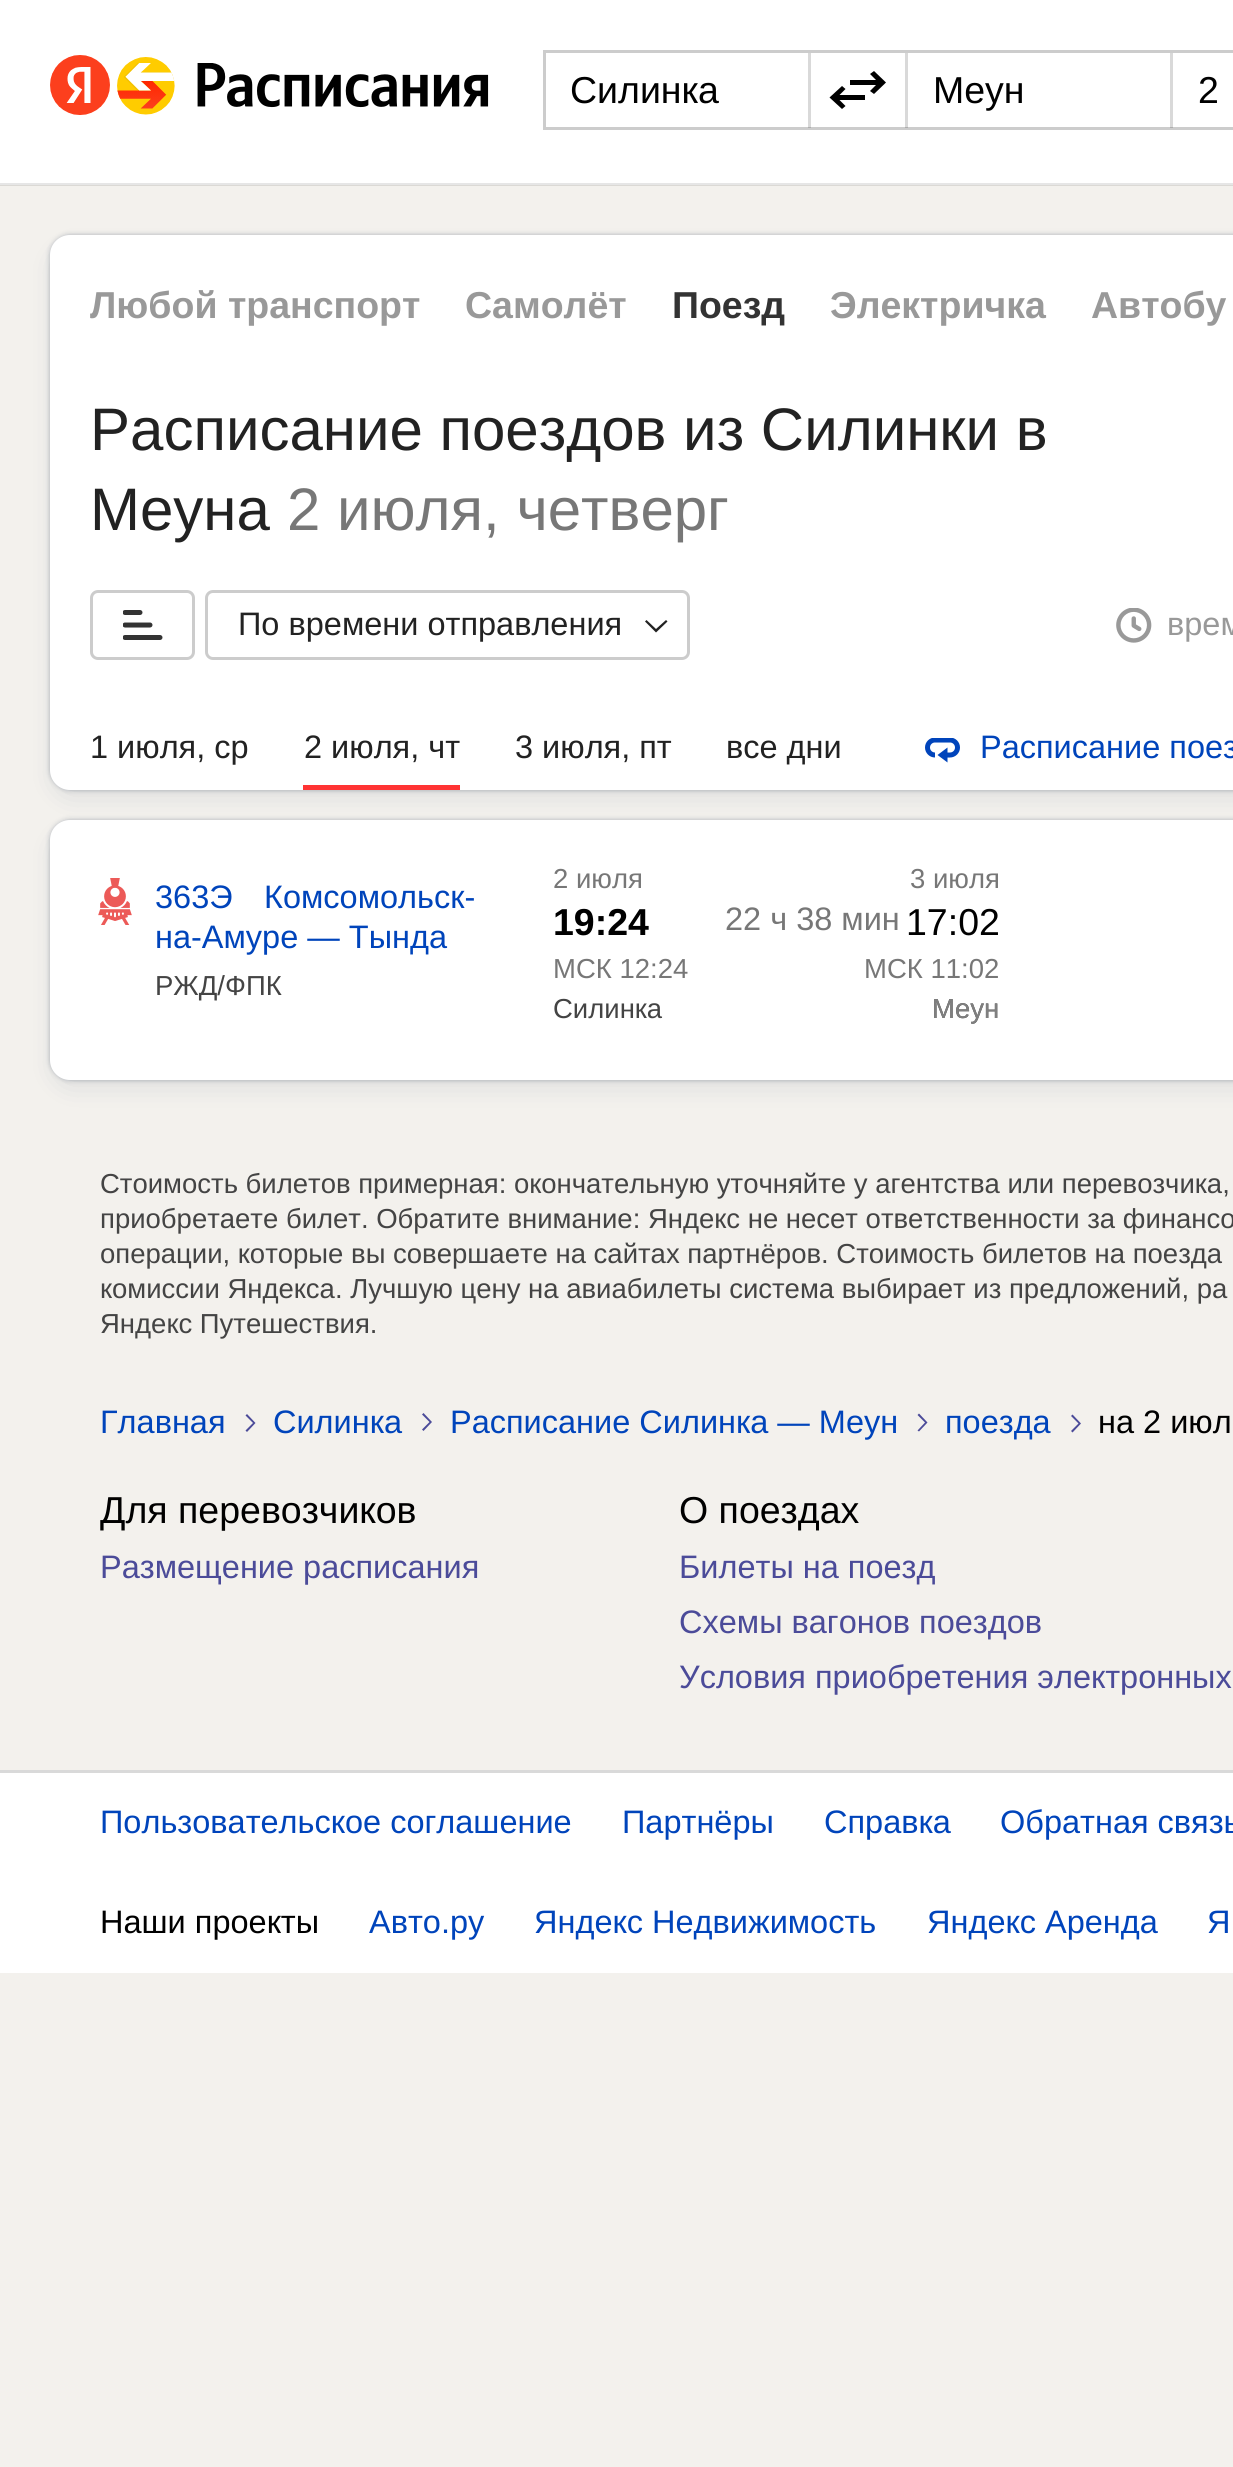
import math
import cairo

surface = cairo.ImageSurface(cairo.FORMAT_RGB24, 1233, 2467)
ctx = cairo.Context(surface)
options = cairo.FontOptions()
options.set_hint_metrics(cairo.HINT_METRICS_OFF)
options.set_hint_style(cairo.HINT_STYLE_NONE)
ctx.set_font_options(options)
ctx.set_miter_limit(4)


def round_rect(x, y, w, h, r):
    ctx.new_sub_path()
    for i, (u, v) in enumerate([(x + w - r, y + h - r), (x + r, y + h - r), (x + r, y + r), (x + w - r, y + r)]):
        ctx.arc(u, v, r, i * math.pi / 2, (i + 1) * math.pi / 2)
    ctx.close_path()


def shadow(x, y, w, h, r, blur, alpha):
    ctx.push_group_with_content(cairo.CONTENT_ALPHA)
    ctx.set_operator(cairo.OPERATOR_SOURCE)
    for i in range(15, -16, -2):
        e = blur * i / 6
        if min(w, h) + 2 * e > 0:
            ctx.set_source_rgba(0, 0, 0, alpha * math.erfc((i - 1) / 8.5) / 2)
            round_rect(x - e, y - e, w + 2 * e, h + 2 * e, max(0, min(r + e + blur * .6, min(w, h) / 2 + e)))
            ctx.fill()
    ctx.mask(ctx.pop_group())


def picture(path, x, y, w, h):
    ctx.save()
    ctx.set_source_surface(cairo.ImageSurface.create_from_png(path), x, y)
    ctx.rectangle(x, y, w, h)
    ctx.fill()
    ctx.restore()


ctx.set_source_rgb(0.953, 0.945, 0.929)
ctx.paint()
ctx.set_source_rgb(0.859, 0.851, 0.835)
ctx.rectangle(0, 185, 1233, 1)
ctx.fill()
ctx.set_source_rgb(1, 1, 1)
ctx.rectangle(0, 0, 1233, 183)
ctx.fill()
ctx.set_source_rgb(0.902, 0.902, 0.902)
ctx.rectangle(0, 183, 1233, 2)
ctx.fill()
picture("img1.png", 50, 55, 60, 60)
picture("img2.png", 117, 57, 58, 58)
picture("img3.png", 197, 63, 292, 45)
ctx.set_source_rgb(0.851, 0.851, 0.851)
ctx.rectangle(808, 53, 3, 75)
ctx.fill()
ctx.rectangle(905, 53, 3, 75)
ctx.fill()
ctx.rectangle(1170, 53, 3, 75)
ctx.fill()
ctx.rectangle(544.5, 51.5, 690, 77)
ctx.set_source_rgba(0, 0, 0, 0.2)
ctx.set_line_width(3)
ctx.stroke()
ctx.select_font_face("Liberation Sans")
ctx.set_font_size(37.5)
ctx.set_source_rgb(0, 0, 0)
ctx.move_to(570, 103)
ctx.show_text("Силинка")
ctx.set_fill_rule(cairo.FILL_RULE_EVEN_ODD)
ctx.new_path()
ctx.move_to(874, 71)
ctx.line_to(870, 74)
ctx.line_to(876, 80)
ctx.line_to(850, 80)
ctx.line_to(850, 85)
ctx.line_to(876, 85)
ctx.line_to(870, 91)
ctx.line_to(874, 94)
ctx.line_to(886, 82.5)
ctx.close_path()
ctx.fill()
ctx.save()
ctx.set_fill_rule(cairo.FILL_RULE_WINDING)
ctx.rectangle(828, 85, 37, 25)
ctx.clip()
ctx.set_fill_rule(cairo.FILL_RULE_EVEN_ODD)
ctx.new_path()
ctx.move_to(842, 109)
ctx.line_to(845.5, 106)
ctx.line_to(839.5, 100)
ctx.line_to(865.5, 100)
ctx.line_to(865.5, 95)
ctx.line_to(839.5, 95)
ctx.line_to(845.5, 89)
ctx.line_to(842, 86)
ctx.line_to(829.5, 97.5)
ctx.close_path()
ctx.fill()
ctx.restore()
ctx.move_to(933, 103)
ctx.show_text("Меун")
ctx.move_to(1198, 103)
ctx.show_text("2")
ctx.set_source_rgb(0.051, 0.137, 0.263)
shadow(50, 235, 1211, 555, 20, 2.5, 0.3)
shadow(60, 255, 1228, 535, 10, 15, 0.15)
ctx.set_source_rgb(1, 1, 1)
round_rect(50, 235, 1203, 555, 20)
ctx.fill()
ctx.select_font_face("Liberation Sans", cairo.FONT_SLANT_NORMAL, cairo.FONT_WEIGHT_BOLD)
ctx.set_source_rgb(0.6, 0.6, 0.6)
ctx.move_to(90, 318)
ctx.show_text("Любой транспорт")
ctx.move_to(465, 318)
ctx.show_text("Самолёт")
ctx.set_source_rgb(0.2, 0.2, 0.2)
ctx.move_to(672, 318)
ctx.show_text("Поезд")
ctx.set_source_rgb(0.6, 0.6, 0.6)
ctx.move_to(830, 318)
ctx.show_text("Электричка")
ctx.move_to(1091, 318)
ctx.show_text("Автобу")
ctx.select_font_face("Liberation Sans")
ctx.set_font_size(60)
ctx.set_source_rgb(0.133, 0.133, 0.133)
ctx.move_to(90, 450)
ctx.show_text("Расписание поездов из Силинки в")
ctx.move_to(90, 530)
ctx.show_text("Меуна")
ctx.set_source_rgb(0.467, 0.467, 0.467)
ctx.move_to(287, 530)
ctx.show_text("2 июля, четверг")
round_rect(91.5, 591.5, 102, 67, 6.5)
ctx.set_source_rgb(0.8, 0.8, 0.8)
ctx.stroke()
picture("img4.png", 123, 610, 40, 30)
round_rect(206.5, 591.5, 482, 67, 6.5)
ctx.stroke()
ctx.set_font_size(32.5)
ctx.set_source_rgb(0.133, 0.133, 0.133)
ctx.move_to(238, 635)
ctx.show_text("По времени отправления")
ctx.new_path()
ctx.move_to(656, 629)
ctx.line_to(646.5, 620)
ctx.line_to(645, 621.5)
ctx.line_to(656, 632.5)
ctx.line_to(667.5, 621.5)
ctx.line_to(666, 620)
ctx.close_path()
ctx.fill()
picture("img5.png", 1116, 608, 36, 35)
ctx.set_source_rgb(0.6, 0.6, 0.6)
ctx.move_to(1167, 635)
ctx.show_text("врем")
ctx.set_source_rgb(0.133, 0.133, 0.133)
ctx.move_to(90, 758)
ctx.show_text("1 июля, ср")
ctx.move_to(304, 758)
ctx.show_text("2 июля, чт")
ctx.set_source_rgb(1, 0.2, 0.2)
ctx.rectangle(303, 785, 157, 5)
ctx.fill()
ctx.set_source_rgb(0.133, 0.133, 0.133)
ctx.move_to(515, 758)
ctx.show_text("3 июля, пт")
ctx.move_to(726, 758)
ctx.show_text("все дни")
picture("img6.png", 925, 738, 35, 25)
ctx.set_source_rgb(0, 0.267, 0.733)
ctx.move_to(980, 758)
ctx.show_text("Расписание поез")
ctx.set_source_rgb(0.051, 0.137, 0.263)
shadow(50, 820, 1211, 260, 20, 2.5, 0.3)
shadow(60, 840, 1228, 240, 10, 15, 0.15)
ctx.set_source_rgb(1, 1, 1)
round_rect(50, 820, 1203, 260, 20)
ctx.fill()
picture("img7.png", 98, 878, 34, 47)
ctx.set_source_rgb(0, 0.267, 0.733)
ctx.move_to(155, 908)
ctx.show_text("363Э")
ctx.move_to(264, 908)
ctx.show_text("Комсомольск-")
ctx.move_to(155, 948)
ctx.show_text("на-Амуре — Тында")
ctx.set_font_size(27.5)
ctx.set_source_rgb(0.267, 0.267, 0.267)
ctx.move_to(155, 995)
ctx.show_text("РЖД/ФПК")
ctx.set_source_rgb(0.467, 0.467, 0.467)
ctx.move_to(553, 888)
ctx.show_text("2 июля")
ctx.select_font_face("Liberation Sans", cairo.FONT_SLANT_NORMAL, cairo.FONT_WEIGHT_BOLD)
ctx.set_font_size(37.5)
ctx.set_source_rgb(0, 0, 0)
ctx.move_to(553, 935)
ctx.show_text("19:24")
ctx.select_font_face("Liberation Sans")
ctx.set_font_size(27.5)
ctx.set_source_rgb(0.467, 0.467, 0.467)
ctx.move_to(553, 978)
ctx.show_text("МСК 12:24")
ctx.set_font_size(32.5)
ctx.move_to(725, 930)
ctx.show_text("22 ч 38 мин")
ctx.set_font_size(27.5)
ctx.move_to(910, 888)
ctx.show_text("3 июля")
ctx.set_font_size(37.5)
ctx.set_source_rgb(0, 0, 0)
ctx.move_to(906, 935)
ctx.show_text("17:02")
ctx.set_font_size(27.5)
ctx.set_source_rgb(0.467, 0.467, 0.467)
ctx.move_to(864, 978)
ctx.show_text("МСК 11:02")
ctx.set_source_rgb(0.267, 0.267, 0.267)
ctx.move_to(932, 1018)
ctx.show_text("Меун")
ctx.set_source_rgb(0.498, 0.498, 0.498)
ctx.move_to(932, 1018)
ctx.show_text("Меун")
ctx.set_source_rgb(0.267, 0.267, 0.267)
ctx.move_to(553, 1018)
ctx.show_text("Силинка")
ctx.move_to(100, 1193)
ctx.show_text("Стоимость билетов примерная: окончательную уточняйте у агентства или перевозчика,")
ctx.move_to(100, 1228)
ctx.show_text("приобретаете билет. Обратите внимание: Яндекс не несет ответственности за финансо")
ctx.move_to(100, 1263)
ctx.show_text("операции, которые вы совершаете на сайтах партнёров. Стоимость билетов на поезда")
ctx.move_to(100, 1298)
ctx.show_text("комиссии Яндекса. Лучшую цену на авиабилеты система выбирает из предложений, ра")
ctx.move_to(100, 1333)
ctx.show_text("Яндекс Путешествия.")
ctx.set_font_size(32.5)
ctx.set_source_rgb(0, 0.267, 0.733)
ctx.move_to(100, 1433)
ctx.show_text("Главная")
ctx.set_source_rgb(0.294, 0.294, 0.6)
ctx.new_path()
ctx.move_to(253, 1423)
ctx.line_to(245.5, 1430.5)
ctx.line_to(247, 1432)
ctx.line_to(255.5, 1423)
ctx.line_to(247, 1414)
ctx.line_to(245.5, 1415.5)
ctx.close_path()
ctx.fill()
ctx.set_source_rgb(0, 0.267, 0.733)
ctx.move_to(273, 1433)
ctx.show_text("Силинка")
ctx.set_source_rgb(0.294, 0.294, 0.6)
ctx.new_path()
ctx.move_to(429.5, 1422)
ctx.line_to(422, 1429.5)
ctx.line_to(423.5, 1431)
ctx.line_to(432, 1422)
ctx.line_to(423.5, 1413)
ctx.line_to(422, 1414.5)
ctx.close_path()
ctx.fill()
ctx.set_source_rgb(0, 0.267, 0.733)
ctx.move_to(450, 1433)
ctx.show_text("Расписание Силинка — Меун")
ctx.set_source_rgb(0.294, 0.294, 0.6)
ctx.new_path()
ctx.move_to(925, 1422.5)
ctx.line_to(917.5, 1430.5)
ctx.line_to(919, 1431.5)
ctx.line_to(927.5, 1422.5)
ctx.line_to(919, 1413.5)
ctx.line_to(917.5, 1415)
ctx.close_path()
ctx.fill()
ctx.set_source_rgb(0, 0.267, 0.733)
ctx.move_to(945, 1433)
ctx.show_text("поезда")
ctx.set_source_rgb(0.294, 0.294, 0.6)
ctx.new_path()
ctx.move_to(1078.5, 1423.5)
ctx.line_to(1071, 1431)
ctx.line_to(1072.5, 1432.5)
ctx.line_to(1081, 1423.5)
ctx.line_to(1072.5, 1414.5)
ctx.line_to(1071, 1416)
ctx.close_path()
ctx.fill()
ctx.set_source_rgb(0, 0, 0)
ctx.move_to(1098, 1433)
ctx.show_text("на 2 июл")
ctx.set_font_size(37.5)
ctx.move_to(100, 1523)
ctx.show_text("Для перевозчиков")
ctx.set_font_size(32.5)
ctx.set_source_rgb(0.294, 0.294, 0.6)
ctx.move_to(100, 1578)
ctx.show_text("Размещение расписания")
ctx.set_font_size(37.5)
ctx.set_source_rgb(0, 0, 0)
ctx.move_to(679, 1523)
ctx.show_text("О поездах")
ctx.set_font_size(32.5)
ctx.set_source_rgb(0.294, 0.294, 0.6)
ctx.move_to(679, 1578)
ctx.show_text("Билеты на поезд")
ctx.move_to(679, 1633)
ctx.show_text("Схемы вагонов поездов")
ctx.move_to(679, 1688)
ctx.show_text("Условия приобретения электронных")
ctx.set_source_rgb(1, 1, 1)
ctx.rectangle(0, 1773, 1233, 200)
ctx.fill()
ctx.set_source_rgb(0.851, 0.851, 0.851)
ctx.rectangle(0, 1770, 1233, 3)
ctx.fill()
ctx.set_source_rgb(0, 0.267, 0.733)
ctx.move_to(100, 1833)
ctx.show_text("Пользовательское соглашение")
ctx.move_to(622, 1833)
ctx.show_text("Партнёры")
ctx.move_to(824, 1833)
ctx.show_text("Справка")
ctx.move_to(1000, 1833)
ctx.show_text("Обратная связь")
ctx.set_source_rgb(0, 0, 0)
ctx.move_to(100, 1933)
ctx.show_text("Наши проекты")
ctx.set_source_rgb(0, 0.267, 0.733)
ctx.move_to(369, 1933)
ctx.show_text("Авто.ру")
ctx.move_to(534, 1933)
ctx.show_text("Яндекс Недвижимость")
ctx.move_to(927, 1933)
ctx.show_text("Яндекс Аренда")
ctx.move_to(1207, 1933)
ctx.show_text("Я")
surface.write_to_png("page.png")
